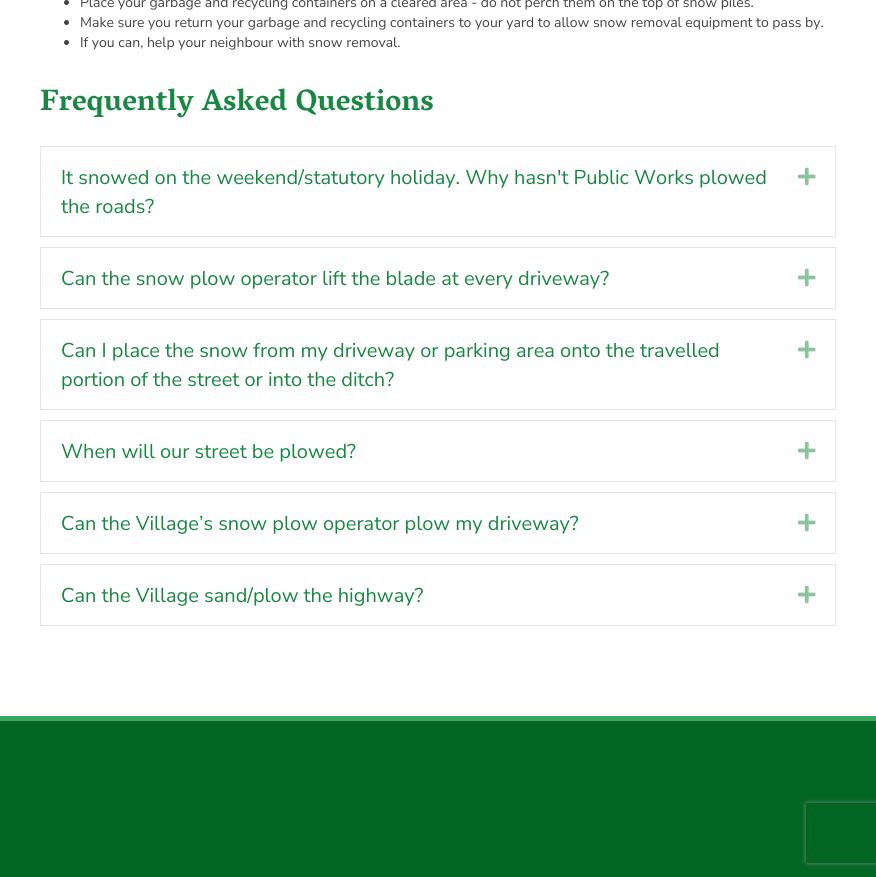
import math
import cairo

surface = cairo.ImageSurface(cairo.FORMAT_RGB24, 876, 877)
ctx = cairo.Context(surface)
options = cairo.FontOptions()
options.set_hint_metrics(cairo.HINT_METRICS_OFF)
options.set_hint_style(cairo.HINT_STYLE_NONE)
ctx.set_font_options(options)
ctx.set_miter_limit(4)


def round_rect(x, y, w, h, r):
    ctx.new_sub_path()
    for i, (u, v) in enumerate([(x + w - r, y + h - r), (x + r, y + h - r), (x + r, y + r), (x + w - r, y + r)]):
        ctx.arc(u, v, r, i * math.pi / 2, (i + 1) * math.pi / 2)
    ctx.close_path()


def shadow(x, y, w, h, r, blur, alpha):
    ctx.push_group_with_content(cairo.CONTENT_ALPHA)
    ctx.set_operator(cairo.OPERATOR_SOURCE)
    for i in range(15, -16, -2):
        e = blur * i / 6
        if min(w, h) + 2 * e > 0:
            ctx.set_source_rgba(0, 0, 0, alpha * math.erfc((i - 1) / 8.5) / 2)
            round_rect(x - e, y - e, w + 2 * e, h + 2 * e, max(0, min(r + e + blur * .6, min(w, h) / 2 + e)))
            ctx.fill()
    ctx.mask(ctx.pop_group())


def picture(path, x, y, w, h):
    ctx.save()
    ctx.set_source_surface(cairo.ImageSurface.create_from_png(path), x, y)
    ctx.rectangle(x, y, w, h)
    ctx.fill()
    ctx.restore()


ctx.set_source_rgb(1, 1, 1)
ctx.paint()
ctx.set_source_rgb(0.267, 0.267, 0.267)
ctx.arc(66.5, 2.5, 2.5, 0, 2 * math.pi)
ctx.fill()
ctx.select_font_face("Nunito Sans")
ctx.set_font_size(14)
ctx.move_to(80, 7)
ctx.show_text("Place your garbage and recycling containers on a cleared area - do not perch them on the top of snow piles.")
ctx.new_path()
ctx.arc(66.5, 22.5, 2.5, 0, 2 * math.pi)
ctx.fill()
ctx.move_to(80, 27)
ctx.show_text("Make sure you return your garbage and recycling containers to your yard to allow snow removal equipment to pass by.")
ctx.new_path()
ctx.arc(66.5, 42.5, 2.5, 0, 2 * math.pi)
ctx.fill()
ctx.move_to(80, 47)
ctx.show_text("If you can, help your neighbour with snow removal.")
ctx.select_font_face("Vesper Libre", cairo.FONT_SLANT_NORMAL, cairo.FONT_WEIGHT_BOLD)
ctx.set_font_size(30)
ctx.set_source_rgb(0.094, 0.529, 0.259)
ctx.move_to(40, 110)
ctx.show_text("Frequently Asked Questions")
ctx.rectangle(40.5, 146.5, 795, 90)
ctx.set_source_rgb(0.898, 0.898, 0.898)
ctx.set_line_width(1)
ctx.stroke()
ctx.select_font_face("Nunito Sans")
ctx.set_font_size(20)
ctx.set_source_rgb(0.094, 0.529, 0.259)
ctx.move_to(61, 184)
ctx.show_text("It snowed on the weekend/statutory holiday. Why hasn't Public Works plowed")
ctx.move_to(61, 213)
ctx.show_text("the roads?")
picture("img1.png", 798, 167, 18, 19)
ctx.rectangle(40.5, 247.5, 795, 61)
ctx.set_source_rgb(0.898, 0.898, 0.898)
ctx.stroke()
ctx.set_source_rgb(0.094, 0.529, 0.259)
ctx.move_to(61, 285)
ctx.show_text("Can the snow plow operator lift the blade at every driveway?")
picture("img1.png", 798, 268, 18, 19)
ctx.rectangle(40.5, 319.5, 795, 90)
ctx.set_source_rgb(0.898, 0.898, 0.898)
ctx.stroke()
ctx.set_source_rgb(0.094, 0.529, 0.259)
ctx.move_to(61, 357)
ctx.show_text("Can I place the snow from my driveway or parking area onto the travelled")
ctx.move_to(61, 386)
ctx.show_text("portion of the street or into the ditch?")
picture("img1.png", 798, 340, 18, 19)
ctx.rectangle(40.5, 420.5, 795, 61)
ctx.set_source_rgb(0.898, 0.898, 0.898)
ctx.stroke()
ctx.set_source_rgb(0.094, 0.529, 0.259)
ctx.move_to(61, 458)
ctx.show_text("When will our street be plowed?")
picture("img1.png", 798, 441, 18, 19)
ctx.rectangle(40.5, 492.5, 795, 61)
ctx.set_source_rgb(0.898, 0.898, 0.898)
ctx.stroke()
ctx.set_source_rgb(0.094, 0.529, 0.259)
ctx.move_to(61, 530)
ctx.show_text("Can the Village’s snow plow operator plow my driveway?")
picture("img1.png", 798, 513, 18, 19)
ctx.rectangle(40.5, 564.5, 795, 61)
ctx.set_source_rgb(0.898, 0.898, 0.898)
ctx.stroke()
ctx.set_source_rgb(0.094, 0.529, 0.259)
ctx.move_to(61, 602)
ctx.show_text("Can the Village sand/plow the highway?")
picture("img1.png", 798, 585, 18, 19)
ctx.set_source_rgb(0, 0.4, 0.133)
ctx.rectangle(0, 721, 876, 156)
ctx.fill()
ctx.set_source_rgb(0.22, 0.655, 0.384)
ctx.rectangle(0, 716, 876, 5)
ctx.fill()
ctx.save()
ctx.set_fill_rule(cairo.FILL_RULE_EVEN_ODD)
ctx.new_path()
ctx.move_to(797, 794)
ctx.line_to(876, 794)
ctx.line_to(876, 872)
ctx.line_to(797, 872)
ctx.close_path()
ctx.move_to(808, 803)
ctx.line_to(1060, 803)
ctx.curve_to(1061, 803, 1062, 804, 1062, 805)
ctx.line_to(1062, 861)
ctx.curve_to(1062, 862, 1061, 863, 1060, 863)
ctx.line_to(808, 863)
ctx.curve_to(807, 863, 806, 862, 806, 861)
ctx.line_to(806, 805)
ctx.curve_to(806, 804, 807, 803, 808, 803)
ctx.close_path()
ctx.clip()
ctx.set_source_rgb(0.502, 0.502, 0.502)
shadow(806, 803, 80, 60, 2, 2.5, 1)
ctx.restore()
surface.write_to_png("page.png")
